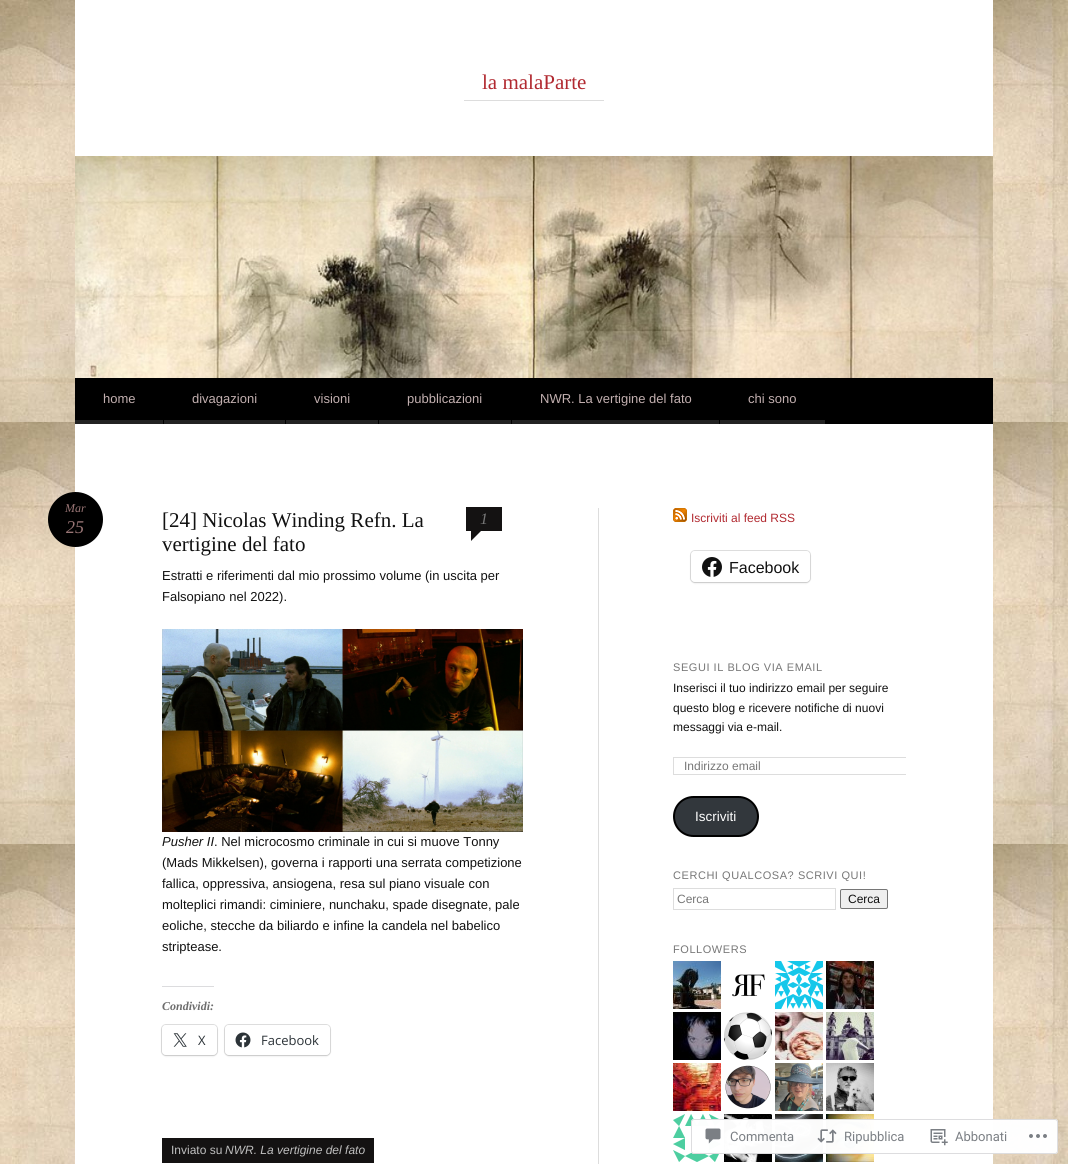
import math
import cairo

surface = cairo.ImageSurface(cairo.FORMAT_RGB24, 1068, 1164)
ctx = cairo.Context(surface)
options = cairo.FontOptions()
options.set_hint_metrics(cairo.HINT_METRICS_OFF)
options.set_hint_style(cairo.HINT_STYLE_NONE)
ctx.set_font_options(options)
ctx.set_miter_limit(4)


def spaced_text(x, y, s, letter, word):
    ctx.move_to(x, y)
    for ch in s:
        ctx.show_text(ch)
        ctx.rel_move_to(letter + word * (ch == ' '), 0)


def round_rect(x, y, w, h, r):
    ctx.new_sub_path()
    for i, (u, v) in enumerate([(x + w - r, y + h - r), (x + r, y + h - r), (x + r, y + r), (x + w - r, y + r)]):
        ctx.arc(u, v, r, i * math.pi / 2, (i + 1) * math.pi / 2)
    ctx.close_path()


def shadow(x, y, w, h, r, blur, alpha):
    ctx.push_group_with_content(cairo.CONTENT_ALPHA)
    ctx.set_operator(cairo.OPERATOR_SOURCE)
    for i in range(15, -16, -2):
        e = blur * i / 6
        if min(w, h) + 2 * e > 0:
            ctx.set_source_rgba(0, 0, 0, alpha * math.erfc((i - 1) / 8.5) / 2)
            round_rect(x - e, y - e, w + 2 * e, h + 2 * e, max(0, min(r + e + blur * .6, min(w, h) / 2 + e)))
            ctx.fill()
    ctx.mask(ctx.pop_group())


def picture(path, x, y, w, h):
    ctx.save()
    ctx.set_source_surface(cairo.ImageSurface.create_from_png(path), x, y)
    ctx.rectangle(x, y, w, h)
    ctx.fill()
    ctx.restore()


ctx.set_source_rgb(1, 1, 1)
ctx.paint()
picture("img1.png", 0, 0, 1068, 1164)
ctx.set_source_rgb(1, 1, 1)
ctx.rectangle(75, 0, 918, 1164)
ctx.fill()
ctx.set_source_rgb(0.867, 0.867, 0.867)
ctx.rectangle(464, 100, 140, 1)
ctx.fill()
ctx.select_font_face("Liberation Serif")
ctx.set_font_size(21)
ctx.set_source_rgb(0.694, 0.161, 0.188)
ctx.move_to(482, 89)
ctx.show_text("la malaParte")
picture("img2.png", 75, 156, 918, 222)
ctx.set_source_rgb(0, 0, 0)
ctx.rectangle(75, 378, 918, 46)
ctx.fill()
ctx.set_source_rgb(0.133, 0.133, 0.133)
ctx.rectangle(75, 420, 88, 4)
ctx.fill()
ctx.select_font_face("Liberation Sans")
ctx.set_font_size(13)
ctx.set_source_rgb(0.765, 0.69, 0.69)
ctx.move_to(103, 403)
ctx.show_text("home")
ctx.set_source_rgb(0.133, 0.133, 0.133)
ctx.rectangle(164, 420, 121, 4)
ctx.fill()
ctx.set_source_rgb(0.765, 0.69, 0.69)
ctx.move_to(192, 403)
ctx.show_text("divagazioni")
ctx.set_source_rgb(0.133, 0.133, 0.133)
ctx.rectangle(286, 420, 92, 4)
ctx.fill()
ctx.set_source_rgb(0.765, 0.69, 0.69)
ctx.move_to(314, 403)
ctx.show_text("visioni")
ctx.set_source_rgb(0.133, 0.133, 0.133)
ctx.rectangle(379, 420, 132, 4)
ctx.fill()
ctx.set_source_rgb(0.765, 0.69, 0.69)
ctx.move_to(407, 403)
ctx.show_text("pubblicazioni")
ctx.set_source_rgb(0.133, 0.133, 0.133)
ctx.rectangle(512, 420, 207, 4)
ctx.fill()
ctx.set_source_rgb(0.765, 0.69, 0.69)
ctx.move_to(540, 403)
ctx.show_text("NWR. La vertigine del fato")
ctx.set_source_rgb(0.133, 0.133, 0.133)
ctx.rectangle(720, 420, 105, 4)
ctx.fill()
ctx.set_source_rgb(0.765, 0.69, 0.69)
ctx.move_to(748, 403)
ctx.show_text("chi sono")
ctx.set_source_rgb(0, 0, 0)
ctx.new_path()
ctx.arc(75.5, 519.5, 27.5, 0, 2 * math.pi)
ctx.fill()
ctx.select_font_face("Liberation Serif", cairo.FONT_SLANT_ITALIC)
ctx.set_font_size(12)
ctx.set_source_rgb(0.6, 0.459, 0.459)
ctx.move_to(65, 512)
ctx.show_text("Mar")
ctx.set_font_size(18)
ctx.move_to(66, 533)
ctx.show_text("25")
ctx.set_source_rgb(0.082, 0.071, 0.071)
ctx.rectangle(162, 1138, 212, 25)
ctx.fill()
ctx.select_font_face("Liberation Sans")
ctx.set_font_size(12)
ctx.set_source_rgb(0.749, 0.749, 0.749)
ctx.move_to(171, 1154)
ctx.show_text("Inviato su")
ctx.select_font_face("Liberation Sans", cairo.FONT_SLANT_ITALIC)
ctx.move_to(225, 1154)
ctx.show_text("NWR. La vertigine del fato")
ctx.select_font_face("Liberation Serif")
ctx.set_font_size(21)
ctx.set_source_rgb(0.067, 0.067, 0.067)
ctx.move_to(162, 527)
ctx.show_text("[24] Nicolas Winding Refn. La")
ctx.move_to(162, 551)
ctx.show_text("vertigine del fato")
ctx.set_source_rgb(0.082, 0.071, 0.071)
ctx.rectangle(466, 507, 36, 24)
ctx.fill()
ctx.select_font_face("Liberation Serif", cairo.FONT_SLANT_ITALIC)
ctx.set_font_size(16)
ctx.set_source_rgb(0.467, 0.467, 0.467)
ctx.move_to(480, 524)
ctx.show_text("1")
ctx.set_source_rgb(0.082, 0.071, 0.071)
ctx.new_path()
ctx.move_to(471, 541)
ctx.line_to(471, 531)
ctx.line_to(481, 531)
ctx.close_path()
ctx.fill()
ctx.select_font_face("Liberation Sans")
ctx.set_font_size(13)
ctx.set_source_rgb(0.067, 0.067, 0.067)
ctx.move_to(162, 580)
ctx.show_text("Estratti e riferimenti dal mio prossimo volume (in uscita per")
ctx.move_to(162, 601)
ctx.show_text("Falsopiano nel 2022).")
picture("img3.png", 162, 629, 361, 203)
ctx.select_font_face("Liberation Sans", cairo.FONT_SLANT_ITALIC)
ctx.move_to(162, 846)
ctx.show_text("Pusher II")
ctx.select_font_face("Liberation Sans")
ctx.move_to(214, 846)
ctx.show_text(". Nel microcosmo criminale in cui si muove Tonny")
ctx.move_to(162, 867)
ctx.show_text("(Mads Mikkelsen), governa i rapporti una serrata competizione")
ctx.move_to(162, 888)
ctx.show_text("fallica, oppressiva, ansiogena, resa sul piano visuale con")
ctx.move_to(162, 909)
ctx.show_text("molteplici rimandi: ciminiere, nunchaku, spade disegnate, pale")
ctx.move_to(162, 930)
ctx.show_text("eoliche, stecche da biliardo e infine la candela nel babelico")
ctx.move_to(162, 951)
ctx.show_text("striptease.")
ctx.set_source_rgb(0.863, 0.863, 0.871)
ctx.rectangle(162, 986, 52, 1)
ctx.fill()
ctx.select_font_face("Liberation Serif", cairo.FONT_SLANT_ITALIC, cairo.FONT_WEIGHT_BOLD)
ctx.set_font_size(12)
ctx.set_source_rgb(0.427, 0.427, 0.427)
ctx.move_to(162, 1010)
ctx.show_text("Condividi:")
round_rect(161.5, 1024.5, 56, 31, 4.5)
ctx.set_source_rgb(0.878, 0.878, 0.878)
ctx.set_line_width(1)
ctx.stroke()
ctx.set_source_rgb(0, 0, 0)
shadow(162, 1026, 55, 30, 4, 1, 0.12)
ctx.set_source_rgb(1, 1, 1)
round_rect(162, 1025, 55, 30, 4)
ctx.fill()
picture("img4.png", 173, 1033, 14, 14)
ctx.select_font_face("Open Sans")
ctx.set_font_size(13)
ctx.set_source_rgb(0.173, 0.2, 0.22)
ctx.move_to(198, 1045)
ctx.show_text("X")
round_rect(224.5, 1024.5, 106, 31, 4.5)
ctx.set_source_rgb(0.878, 0.878, 0.878)
ctx.stroke()
ctx.set_source_rgb(0, 0, 0)
shadow(225, 1026, 105, 30, 4, 1, 0.12)
ctx.set_source_rgb(1, 1, 1)
round_rect(225, 1025, 105, 30, 4)
ctx.fill()
picture("img5.png", 235, 1032, 16, 16)
ctx.set_source_rgb(0.173, 0.2, 0.22)
ctx.move_to(261, 1045)
ctx.show_text("Facebook")
ctx.set_source_rgb(0.867, 0.867, 0.867)
ctx.rectangle(598, 508, 1, 656)
ctx.fill()
picture("img6.png", 673, 508, 14, 14)
ctx.select_font_face("Liberation Sans")
ctx.set_font_size(12)
ctx.set_source_rgb(0.694, 0.161, 0.188)
ctx.move_to(691, 522)
ctx.show_text("Iscriviti al feed RSS")
round_rect(690.5, 550.5, 120, 32, 4.5)
ctx.set_source_rgb(0.878, 0.878, 0.878)
ctx.stroke()
ctx.set_source_rgb(0, 0, 0)
shadow(691, 552, 119, 31, 4, 1, 0.12)
ctx.set_source_rgb(1, 1, 1)
round_rect(691, 551, 119, 31, 4)
ctx.fill()
picture("img7.png", 702, 557, 20, 20)
ctx.set_font_size(16)
ctx.set_source_rgb(0.067, 0.067, 0.067)
ctx.move_to(729, 573)
ctx.show_text("Facebook")
ctx.set_font_size(11)
ctx.set_source_rgb(0.467, 0.467, 0.467)
spaced_text(673, 671, "SEGUI IL BLOG VIA EMAIL", 0.55, 0)
ctx.set_font_size(12)
ctx.set_source_rgb(0.067, 0.067, 0.067)
ctx.move_to(673, 692)
ctx.show_text("Inserisci il tuo indirizzo email per seguire")
ctx.move_to(673, 712)
ctx.show_text("questo blog e ricevere notifiche di nuovi")
ctx.move_to(673, 731)
ctx.show_text("messaggi via e-mail.")
ctx.save()
ctx.rectangle(599, 508, 307, 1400)
ctx.clip()
ctx.rectangle(673.5, 757.5, 243, 17)
ctx.set_source_rgb(0.867, 0.867, 0.867)
ctx.stroke()
ctx.restore()
ctx.set_source_rgb(0.467, 0.467, 0.467)
ctx.move_to(684, 770)
ctx.show_text("Indirizzo email")
ctx.set_source_rgb(0.196, 0.216, 0.235)
round_rect(674, 797, 84, 39, 19.5)
ctx.fill_preserve()
ctx.set_source_rgb(0, 0, 0)
ctx.set_line_width(2)
ctx.stroke()
ctx.set_font_size(13.5)
ctx.set_source_rgb(1, 1, 1)
ctx.move_to(695, 821)
ctx.show_text("Iscriviti")
ctx.set_font_size(11)
ctx.set_source_rgb(0.467, 0.467, 0.467)
spaced_text(673, 879, "CERCHI QUALCOSA? SCRIVI QUI!", 0.55, 0)
ctx.rectangle(673.5, 888.5, 162, 21)
ctx.set_source_rgb(0.867, 0.867, 0.867)
ctx.set_line_width(1)
ctx.stroke()
ctx.set_font_size(12)
ctx.set_source_rgb(0.467, 0.467, 0.467)
ctx.move_to(677, 903)
ctx.show_text("Cerca")
ctx.set_source_rgb(0.937, 0.937, 0.937)
round_rect(840.5, 889.5, 47, 19, 1.5)
ctx.fill_preserve()
ctx.set_source_rgb(0.463, 0.463, 0.463)
ctx.stroke()
ctx.set_source_rgb(0.067, 0.067, 0.067)
ctx.move_to(848, 903)
ctx.show_text("Cerca")
ctx.set_font_size(11)
ctx.set_source_rgb(0.467, 0.467, 0.467)
spaced_text(673, 953, "FOLLOWERS", 0.55, 0)
picture("img8.png", 673, 961, 48, 48)
picture("img9.png", 732, 974, 33, 23)
picture("img10.png", 775, 961, 48, 48)
picture("img11.png", 826, 961, 48, 48)
picture("img12.png", 673, 1012, 48, 48)
picture("img13.png", 724, 1012, 48, 48)
picture("img14.png", 775, 1012, 48, 48)
picture("img15.png", 826, 1012, 48, 48)
picture("img16.png", 673, 1063, 48, 48)
picture("img17.png", 725, 1065, 46, 44)
picture("img18.png", 775, 1063, 48, 48)
picture("img19.png", 826, 1063, 48, 48)
picture("img20.png", 673, 1114, 48, 48)
picture("img21.png", 724, 1114, 48, 48)
picture("img22.png", 775, 1114, 48, 48)
picture("img23.png", 826, 1114, 48, 48)
ctx.set_source_rgba(1, 1, 1, 0.98)
round_rect(691, 1119, 367, 35, 3)
ctx.fill()
round_rect(691.5, 1119.5, 366, 34, 2.5)
ctx.set_source_rgba(0.863, 0.863, 0.871, 0.98)
ctx.stroke()
picture("img24.png", 705, 1128, 16, 16)
ctx.select_font_face("Roboto")
ctx.set_font_size(13)
ctx.set_source_rgb(0.482, 0.498, 0.518)
ctx.move_to(730, 1141)
ctx.show_text("Commenta")
picture("img25.png", 817, 1129, 20, 14)
ctx.move_to(844, 1141)
ctx.show_text("Ripubblica")
picture("img26.png", 930, 1129, 18, 17)
ctx.move_to(955, 1141)
ctx.show_text("Abbonati")
picture("img27.png", 1029, 1134, 18, 4)
surface.write_to_png("page.png")
